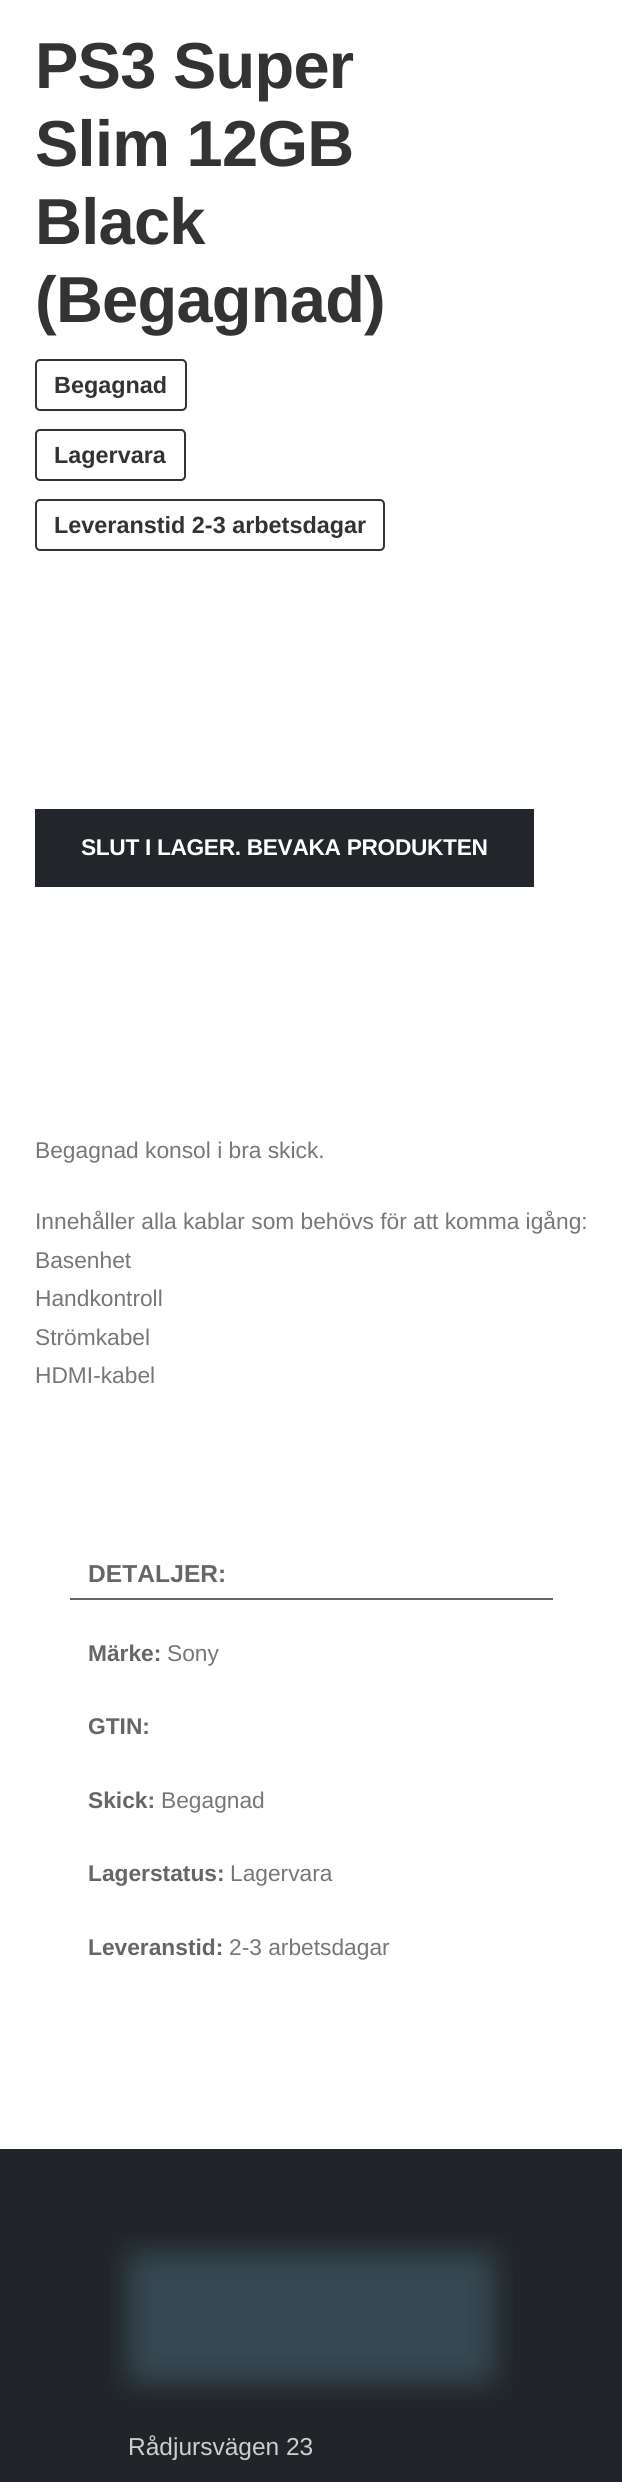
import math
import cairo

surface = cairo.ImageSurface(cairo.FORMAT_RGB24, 622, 2482)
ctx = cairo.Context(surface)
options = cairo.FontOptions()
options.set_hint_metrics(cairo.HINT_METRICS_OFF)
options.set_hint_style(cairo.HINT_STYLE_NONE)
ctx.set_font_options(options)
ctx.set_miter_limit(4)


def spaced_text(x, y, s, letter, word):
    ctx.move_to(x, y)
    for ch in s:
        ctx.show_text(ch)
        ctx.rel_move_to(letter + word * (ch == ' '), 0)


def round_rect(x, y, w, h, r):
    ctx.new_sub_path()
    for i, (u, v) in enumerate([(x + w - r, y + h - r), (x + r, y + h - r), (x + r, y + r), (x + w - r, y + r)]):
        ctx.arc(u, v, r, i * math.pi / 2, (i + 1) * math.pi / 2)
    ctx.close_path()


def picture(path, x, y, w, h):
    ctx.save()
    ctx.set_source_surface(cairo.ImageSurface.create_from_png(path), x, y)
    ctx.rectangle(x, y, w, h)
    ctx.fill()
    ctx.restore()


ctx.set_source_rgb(1, 1, 1)
ctx.paint()
ctx.select_font_face("Liberation Sans", cairo.FONT_SLANT_NORMAL, cairo.FONT_WEIGHT_BOLD)
ctx.set_font_size(65)
ctx.set_source_rgb(0.2, 0.2, 0.2)
spaced_text(35, 88, "PS3 Super", -0.75, 0)
spaced_text(35, 166, "Slim 12GB", -0.75, 0)
spaced_text(35, 244, "Black", -0.75, 0)
spaced_text(35, 322, "(Begagnad)", -0.75, 0)
round_rect(36, 360, 150, 50, 4)
ctx.stroke()
ctx.set_font_size(23.4)
ctx.move_to(54, 393)
ctx.show_text("Begagnad")
round_rect(36, 430, 149, 50, 4)
ctx.stroke()
ctx.move_to(54, 463)
ctx.show_text("Lagervara")
round_rect(36, 500, 348, 50, 4)
ctx.stroke()
ctx.move_to(54, 533)
ctx.show_text("Leveranstid 2-3 arbetsdagar")
ctx.set_source_rgb(0.133, 0.145, 0.161)
ctx.rectangle(35, 809, 499, 78)
ctx.fill()
ctx.set_font_size(22.75)
ctx.set_source_rgb(1, 1, 1)
spaced_text(81, 855, "SLUT I LAGER. BEVAKA PRODUKTEN", -0.35, 0)
ctx.select_font_face("Liberation Sans")
ctx.set_source_rgb(0.467, 0.467, 0.467)
ctx.move_to(35, 1158)
ctx.show_text("Begagnad konsol i bra skick.")
ctx.move_to(35, 1229)
ctx.show_text("Innehåller alla kablar som behövs för att komma igång:")
ctx.move_to(35, 1268)
ctx.show_text("Basenhet")
ctx.move_to(35, 1306)
ctx.show_text("Handkontroll")
ctx.move_to(35, 1345)
ctx.show_text("Strömkabel")
ctx.move_to(35, 1383)
ctx.show_text("HDMI-kabel")
ctx.set_source_rgb(0.4, 0.4, 0.4)
ctx.rectangle(70, 1598, 483, 2)
ctx.fill()
ctx.select_font_face("Liberation Sans", cairo.FONT_SLANT_NORMAL, cairo.FONT_WEIGHT_BOLD)
ctx.set_font_size(24.5)
spaced_text(88, 1582, "DETALJER:", 0.1, 0)
ctx.set_font_size(22.75)
ctx.move_to(88, 1661)
ctx.show_text("Märke:")
ctx.select_font_face("Liberation Sans")
ctx.set_source_rgb(0.467, 0.467, 0.467)
ctx.move_to(167, 1661)
ctx.show_text("Sony")
ctx.select_font_face("Liberation Sans", cairo.FONT_SLANT_NORMAL, cairo.FONT_WEIGHT_BOLD)
ctx.set_source_rgb(0.4, 0.4, 0.4)
ctx.move_to(88, 1734)
ctx.show_text("GTIN:")
ctx.move_to(88, 1808)
ctx.show_text("Skick:")
ctx.select_font_face("Liberation Sans")
ctx.set_source_rgb(0.467, 0.467, 0.467)
ctx.move_to(161, 1808)
ctx.show_text("Begagnad")
ctx.select_font_face("Liberation Sans", cairo.FONT_SLANT_NORMAL, cairo.FONT_WEIGHT_BOLD)
ctx.set_source_rgb(0.4, 0.4, 0.4)
ctx.move_to(88, 1881)
ctx.show_text("Lagerstatus:")
ctx.select_font_face("Liberation Sans")
ctx.set_source_rgb(0.467, 0.467, 0.467)
ctx.move_to(230, 1881)
ctx.show_text("Lagervara")
ctx.select_font_face("Liberation Sans", cairo.FONT_SLANT_NORMAL, cairo.FONT_WEIGHT_BOLD)
ctx.set_source_rgb(0.4, 0.4, 0.4)
ctx.move_to(88, 1955)
ctx.show_text("Leveranstid:")
ctx.select_font_face("Liberation Sans")
ctx.set_source_rgb(0.467, 0.467, 0.467)
ctx.move_to(229, 1955)
ctx.show_text("2-3 arbetsdagar")
ctx.set_source_rgb(0.129, 0.145, 0.161)
ctx.rectangle(0, 2149, 622, 333)
ctx.fill()
picture("img1.png", 110, 2234, 403, 167)
ctx.set_font_size(24.5)
ctx.set_source_rgb(0.808, 0.808, 0.808)
ctx.move_to(128, 2455)
ctx.show_text("Rådjursvägen 23")
surface.write_to_png("page.png")
